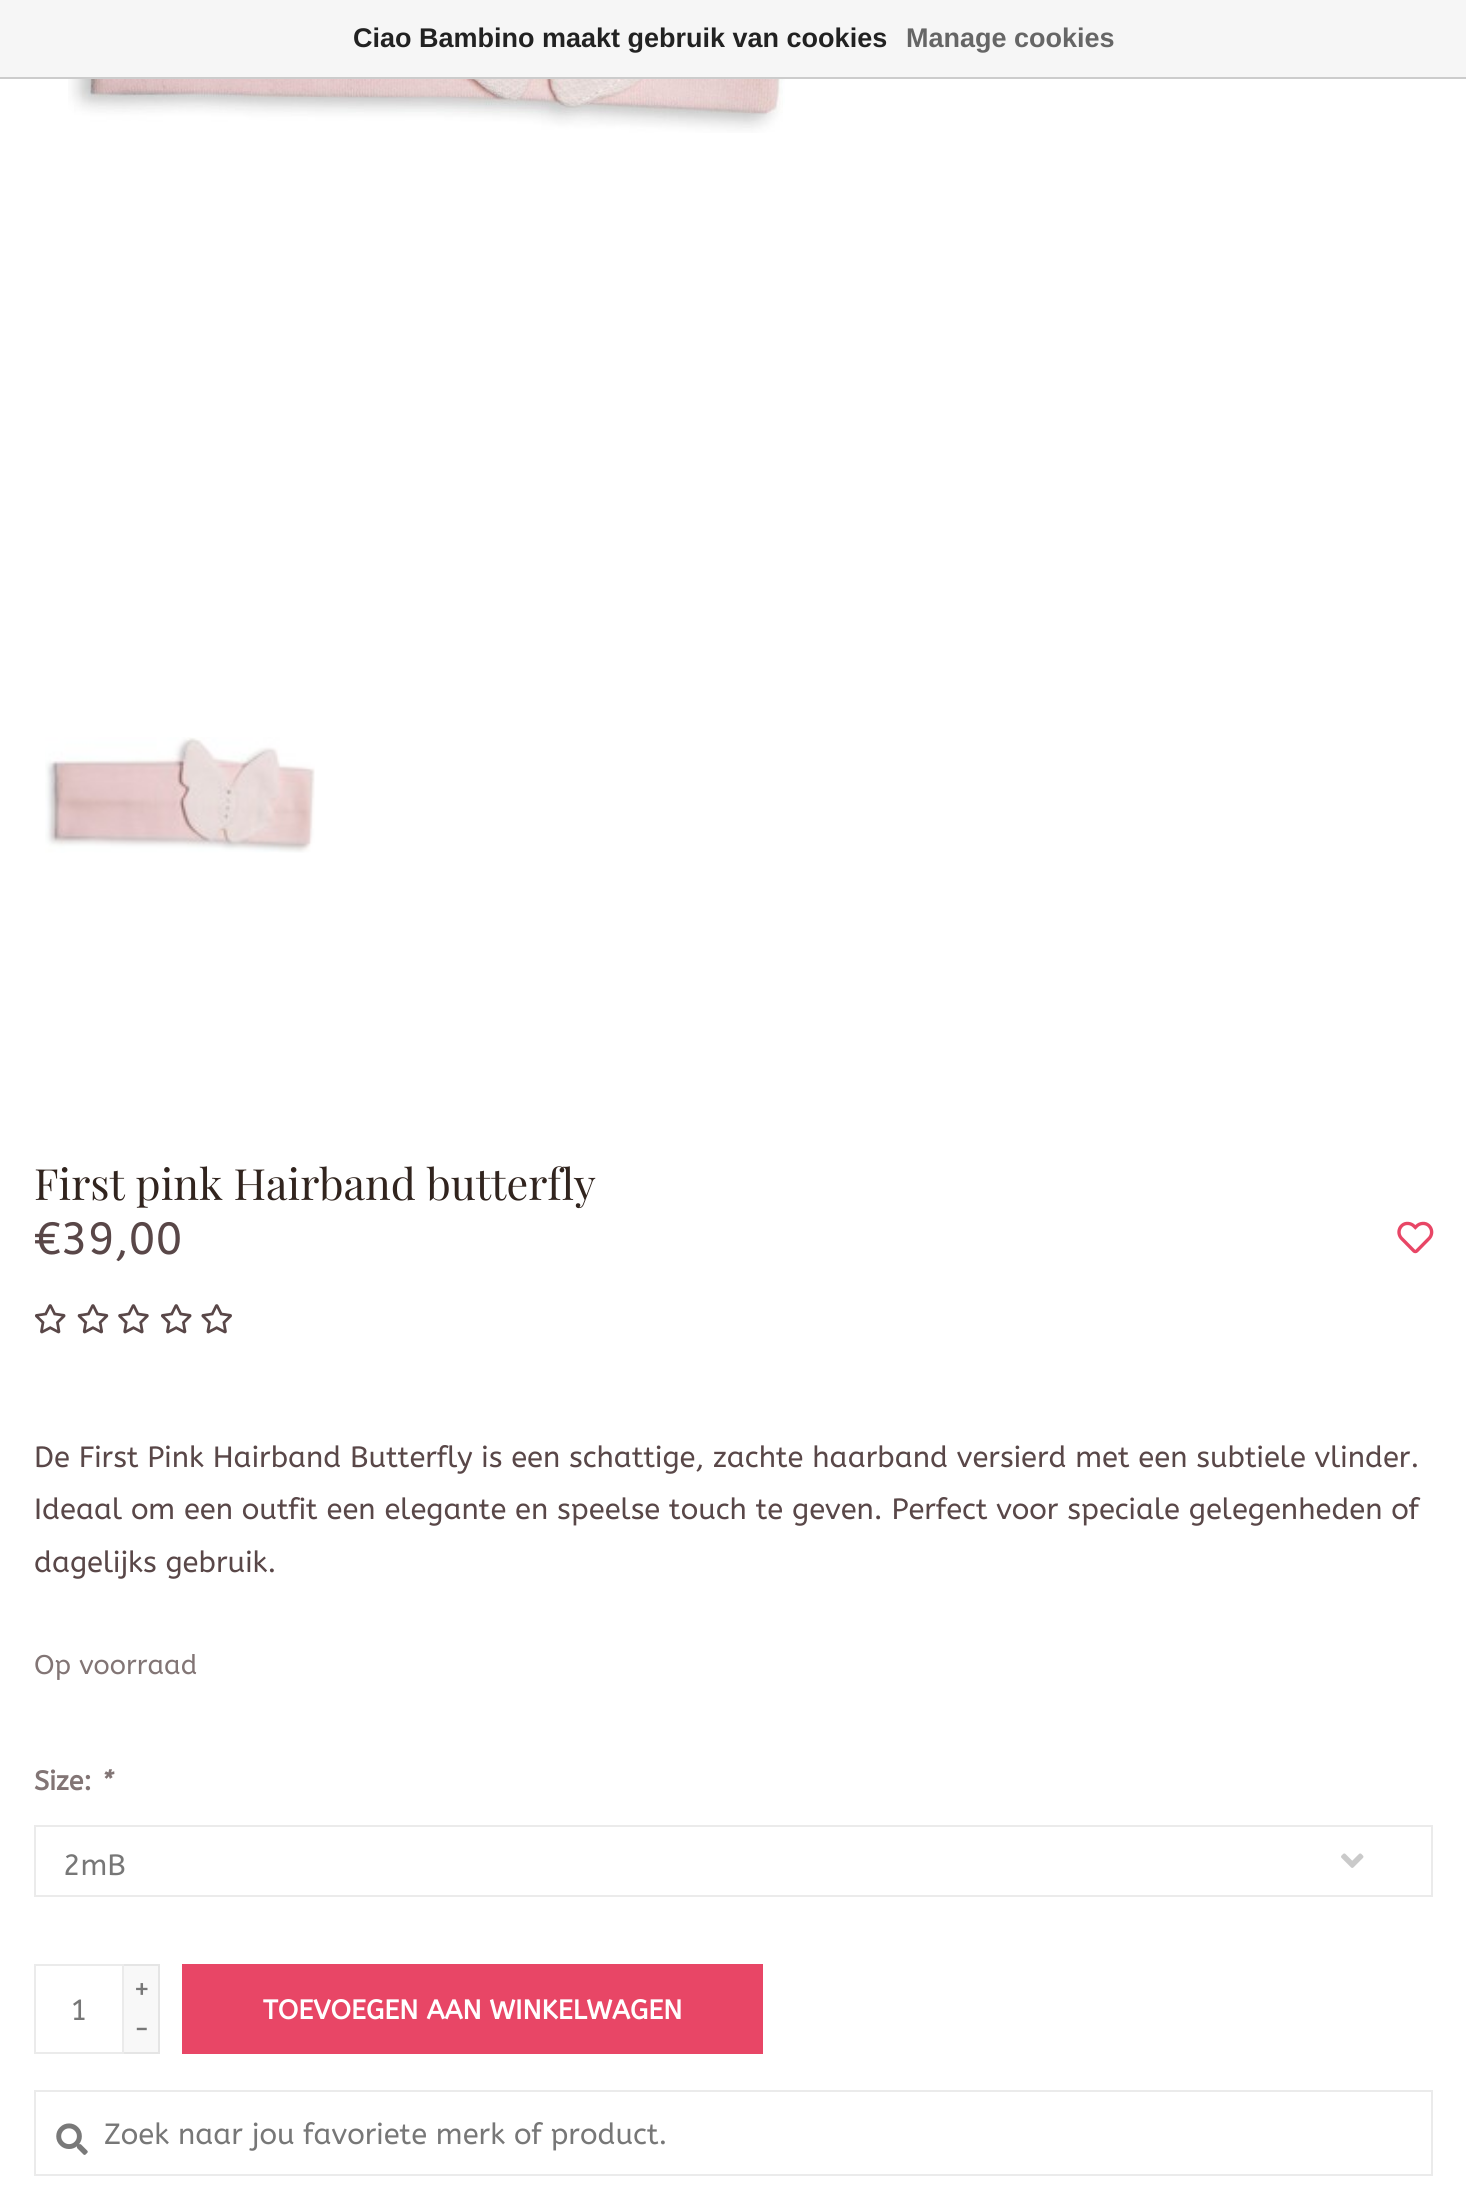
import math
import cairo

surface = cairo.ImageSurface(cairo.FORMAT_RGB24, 1466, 2199)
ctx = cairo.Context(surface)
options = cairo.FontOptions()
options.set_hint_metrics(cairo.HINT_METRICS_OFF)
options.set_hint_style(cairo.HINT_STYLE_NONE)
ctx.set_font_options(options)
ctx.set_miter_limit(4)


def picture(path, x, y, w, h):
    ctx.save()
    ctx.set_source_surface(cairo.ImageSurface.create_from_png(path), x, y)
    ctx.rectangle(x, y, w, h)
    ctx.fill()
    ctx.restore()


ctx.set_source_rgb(1, 1, 1)
ctx.paint()
ctx.set_source_rgb(0.961, 0.961, 0.961)
ctx.rectangle(0, 0, 1466, 77)
ctx.fill()
ctx.set_source_rgb(0.8, 0.8, 0.8)
ctx.rectangle(0, 77, 1466, 2)
ctx.fill()
ctx.select_font_face("Liberation Sans", cairo.FONT_SLANT_NORMAL, cairo.FONT_WEIGHT_BOLD)
ctx.set_font_size(27)
ctx.set_source_rgb(0.133, 0.133, 0.133)
ctx.move_to(353, 47)
ctx.show_text("Ciao Bambino maakt gebruik van cookies")
ctx.set_source_rgb(0.4, 0.4, 0.4)
ctx.move_to(906, 47)
ctx.show_text("Manage cookies")
picture("img1.png", 68, 79, 717, 54)
picture("img2.png", 45, 737, 270, 116)
ctx.select_font_face("Playfair Display")
ctx.set_font_size(43.1)
ctx.set_source_rgb(0.192, 0.141, 0.118)
ctx.move_to(34, 1200)
ctx.show_text("First pink Hairband butterfly")
ctx.select_font_face("ABeeZee")
ctx.set_font_size(45)
ctx.set_source_rgb(0.349, 0.278, 0.282)
ctx.move_to(34, 1254)
ctx.show_text("€39,00")
picture("img3.png", 1397, 1221, 37, 33)
picture("img4.png", 35, 1304, 31, 30)
picture("img5.png", 77, 1304, 32, 30)
picture("img6.png", 118, 1304, 31, 30)
picture("img4.png", 161, 1304, 31, 30)
picture("img7.png", 201, 1304, 31, 30)
ctx.set_font_size(29.25)
ctx.move_to(34, 1467)
ctx.show_text("De First Pink Hairband Butterfly is een schattige, zachte haarband versierd met een subtiele vlinder.")
ctx.move_to(34, 1519)
ctx.show_text("Ideaal om een outfit een elegante en speelse touch te geven. Perfect voor speciale gelegenheden of")
ctx.move_to(34, 1572)
ctx.show_text("dagelijks gebruik.")
ctx.set_font_size(27)
ctx.set_source_rgb(0.51, 0.459, 0.459)
ctx.move_to(34, 1674)
ctx.show_text("Op voorraad")
ctx.select_font_face("ABeeZee", cairo.FONT_SLANT_NORMAL, cairo.FONT_WEIGHT_BOLD)
ctx.move_to(34, 1790)
ctx.show_text("Size:")
ctx.select_font_face("ABeeZee", cairo.FONT_SLANT_ITALIC, cairo.FONT_WEIGHT_BOLD)
ctx.move_to(99, 1790)
ctx.show_text("*")
picture("img8.png", 1341, 1853, 23, 15)
ctx.rectangle(35, 1826, 1397, 70)
ctx.set_source_rgb(0.918, 0.918, 0.918)
ctx.stroke()
ctx.select_font_face("ABeeZee")
ctx.set_font_size(29.25)
ctx.set_source_rgb(0.467, 0.467, 0.467)
ctx.move_to(63, 1875)
ctx.show_text("2mB")
ctx.rectangle(35, 1965, 88, 88)
ctx.set_source_rgb(0.918, 0.918, 0.918)
ctx.stroke()
ctx.set_source_rgb(0.467, 0.467, 0.467)
ctx.move_to(70, 2020)
ctx.show_text("1")
ctx.set_source_rgb(0.969, 0.969, 0.969)
ctx.rectangle(124, 1966, 34, 86)
ctx.fill()
ctx.set_source_rgb(0.898, 0.898, 0.898)
ctx.rectangle(124, 1964, 36, 2)
ctx.fill()
ctx.rectangle(158, 1964, 2, 90)
ctx.fill()
ctx.rectangle(124, 2052, 36, 2)
ctx.fill()
ctx.set_source_rgb(0.467, 0.467, 0.467)
ctx.move_to(133, 1999)
ctx.show_text("+")
ctx.move_to(133, 2039)
ctx.show_text("-")
ctx.set_source_rgb(0.91, 0.275, 0.4)
ctx.rectangle(182, 1964, 581, 90)
ctx.fill()
ctx.select_font_face("ABeeZee", cairo.FONT_SLANT_NORMAL, cairo.FONT_WEIGHT_BOLD)
ctx.set_font_size(27)
ctx.set_source_rgb(1, 1, 1)
ctx.move_to(263, 2019)
ctx.show_text("TOEVOEGEN AAN WINKELWAGEN")
ctx.rectangle(35, 2091, 1397, 84)
ctx.set_source_rgb(0.918, 0.918, 0.918)
ctx.stroke()
picture("img9.png", 56, 2123, 32, 32)
ctx.select_font_face("ABeeZee")
ctx.set_font_size(29.25)
ctx.set_source_rgb(0.467, 0.467, 0.467)
ctx.move_to(104, 2144)
ctx.show_text("Zoek naar jou favoriete merk of product.")
surface.write_to_png("page.png")
